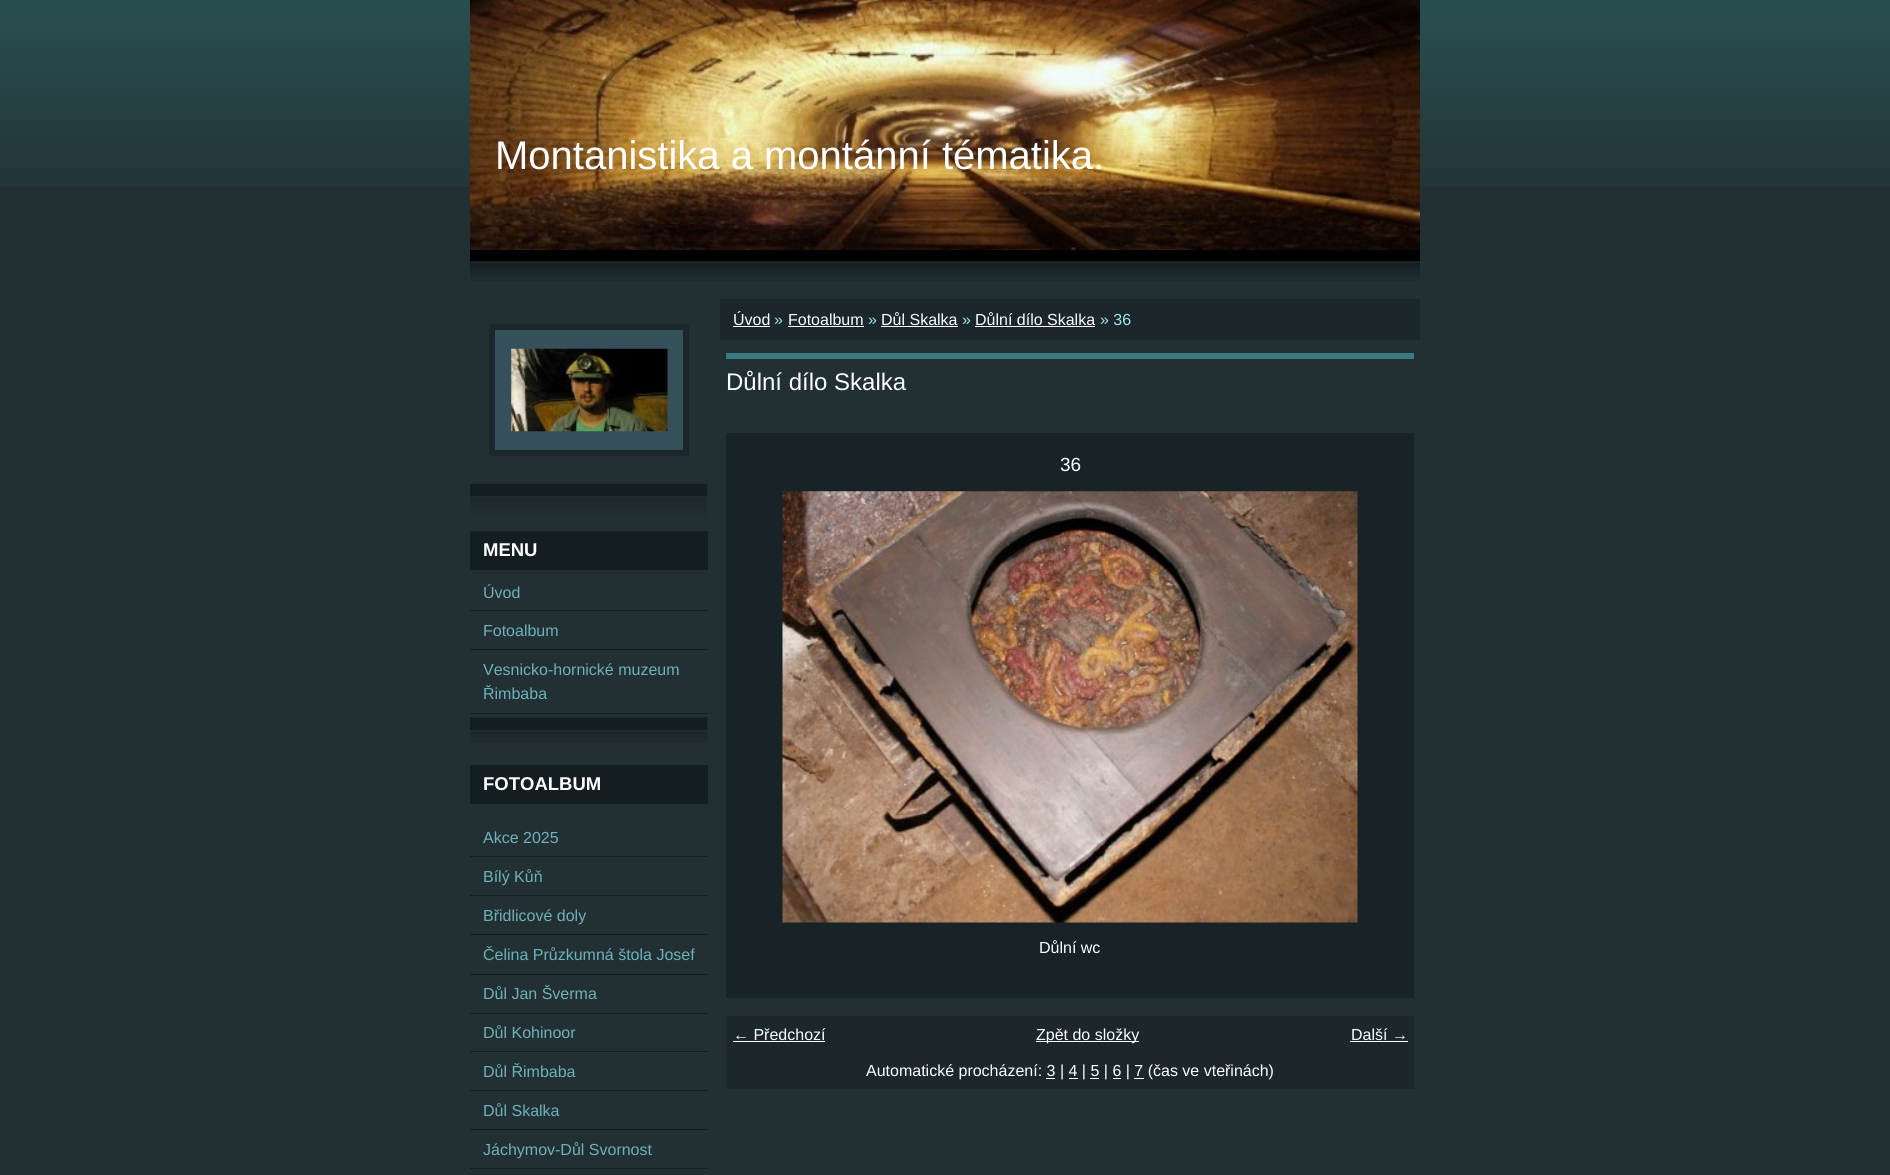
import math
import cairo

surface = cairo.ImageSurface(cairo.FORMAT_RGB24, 1890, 1175)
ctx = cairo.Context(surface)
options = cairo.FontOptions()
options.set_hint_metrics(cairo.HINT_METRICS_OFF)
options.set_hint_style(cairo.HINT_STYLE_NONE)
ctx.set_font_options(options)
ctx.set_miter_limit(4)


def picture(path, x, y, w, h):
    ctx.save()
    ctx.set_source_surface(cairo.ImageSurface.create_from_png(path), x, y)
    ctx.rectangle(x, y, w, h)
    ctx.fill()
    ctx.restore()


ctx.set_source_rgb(0.133, 0.188, 0.204)
ctx.paint()
picture("img1.png", 0, 0, 1890, 187)
picture("img2.png", 470, 250, 950, 31)
picture("img3.png", 470, 0, 950, 250)
ctx.select_font_face("Liberation Sans")
ctx.set_font_size(40)
ctx.set_source_rgb(1, 1, 1)
ctx.move_to(495, 169)
ctx.show_text("Montanistika a montánní tématika.")
ctx.set_source_rgb(0.078, 0.118, 0.129)
ctx.rectangle(470, 531, 238, 39)
ctx.fill()
picture("img4.png", 470, 483, 238, 49)
ctx.set_source_rgb(0.208, 0.314, 0.345)
ctx.rectangle(492, 327, 194, 126)
ctx.fill_preserve()
ctx.set_source_rgb(0.106, 0.153, 0.165)
ctx.set_line_width(6)
ctx.stroke()
picture("img5.png", 511, 348, 157, 84)
ctx.select_font_face("Liberation Sans", cairo.FONT_SLANT_NORMAL, cairo.FONT_WEIGHT_BOLD)
ctx.set_font_size(18.5)
ctx.set_source_rgb(1, 1, 1)
ctx.move_to(483, 556)
ctx.show_text("MENU")
picture("img6.png", 470, 717, 238, 26)
ctx.set_source_rgb(0.078, 0.118, 0.129)
ctx.rectangle(470, 610, 238, 1)
ctx.fill()
ctx.select_font_face("Liberation Sans")
ctx.set_font_size(16)
ctx.set_source_rgb(0.427, 0.698, 0.722)
ctx.move_to(483, 598)
ctx.show_text("Úvod")
ctx.set_source_rgb(0.078, 0.118, 0.129)
ctx.rectangle(470, 649, 238, 1)
ctx.fill()
ctx.set_source_rgb(0.427, 0.698, 0.722)
ctx.move_to(483, 636)
ctx.show_text("Fotoalbum")
ctx.set_source_rgb(0.078, 0.118, 0.129)
ctx.rectangle(470, 713, 238, 1)
ctx.fill()
ctx.set_source_rgb(0.427, 0.698, 0.722)
ctx.move_to(483, 675)
ctx.show_text("Vesnicko-hornické muzeum")
ctx.move_to(483, 699)
ctx.show_text("Řimbaba")
ctx.set_source_rgb(0.078, 0.118, 0.129)
ctx.rectangle(470, 765, 238, 39)
ctx.fill()
ctx.select_font_face("Liberation Sans", cairo.FONT_SLANT_NORMAL, cairo.FONT_WEIGHT_BOLD)
ctx.set_font_size(18.5)
ctx.set_source_rgb(1, 1, 1)
ctx.move_to(483, 790)
ctx.show_text("FOTOALBUM")
ctx.set_source_rgb(0.078, 0.118, 0.129)
ctx.rectangle(470, 856, 238, 1)
ctx.fill()
ctx.select_font_face("Liberation Sans")
ctx.set_font_size(16)
ctx.set_source_rgb(0.427, 0.698, 0.722)
ctx.move_to(483, 843)
ctx.show_text("Akce 2025")
ctx.set_source_rgb(0.078, 0.118, 0.129)
ctx.rectangle(470, 895, 238, 1)
ctx.fill()
ctx.set_source_rgb(0.427, 0.698, 0.722)
ctx.move_to(483, 882)
ctx.show_text("Bílý Kůň")
ctx.set_source_rgb(0.078, 0.118, 0.129)
ctx.rectangle(470, 934, 238, 1)
ctx.fill()
ctx.set_source_rgb(0.427, 0.698, 0.722)
ctx.move_to(483, 921)
ctx.show_text("Břidlicové doly")
ctx.set_source_rgb(0.078, 0.118, 0.129)
ctx.rectangle(470, 974, 238, 1)
ctx.fill()
ctx.set_source_rgb(0.427, 0.698, 0.722)
ctx.move_to(483, 960)
ctx.show_text("Čelina Průzkumná štola Josef")
ctx.set_source_rgb(0.078, 0.118, 0.129)
ctx.rectangle(470, 1013, 238, 1)
ctx.fill()
ctx.set_source_rgb(0.427, 0.698, 0.722)
ctx.move_to(483, 999)
ctx.show_text("Důl Jan Šverma")
ctx.set_source_rgb(0.078, 0.118, 0.129)
ctx.rectangle(470, 1051, 238, 1)
ctx.fill()
ctx.set_source_rgb(0.427, 0.698, 0.722)
ctx.move_to(483, 1038)
ctx.show_text("Důl Kohinoor")
ctx.set_source_rgb(0.078, 0.118, 0.129)
ctx.rectangle(470, 1090, 238, 1)
ctx.fill()
ctx.set_source_rgb(0.427, 0.698, 0.722)
ctx.move_to(483, 1077)
ctx.show_text("Důl Řimbaba")
ctx.set_source_rgb(0.078, 0.118, 0.129)
ctx.rectangle(470, 1129, 238, 1)
ctx.fill()
ctx.set_source_rgb(0.427, 0.698, 0.722)
ctx.move_to(483, 1116)
ctx.show_text("Důl Skalka")
ctx.set_source_rgb(0.078, 0.118, 0.129)
ctx.rectangle(470, 1168, 238, 1)
ctx.fill()
ctx.set_source_rgb(0.427, 0.698, 0.722)
ctx.move_to(483, 1155)
ctx.show_text("Jáchymov-Důl Svornost")
ctx.set_source_rgb(0.106, 0.153, 0.165)
ctx.rectangle(720, 299, 700, 41)
ctx.fill()
ctx.set_source_rgb(1, 1, 1)
ctx.move_to(733, 325)
ctx.show_text("Úvod")
ctx.rectangle(733, 326, 37, 1)
ctx.fill()
ctx.set_source_rgb(0.62, 0.898, 0.922)
ctx.move_to(774, 325)
ctx.show_text("»")
ctx.set_source_rgb(1, 1, 1)
ctx.move_to(788, 325)
ctx.show_text("Fotoalbum")
ctx.rectangle(788, 326, 76, 1)
ctx.fill()
ctx.set_source_rgb(0.62, 0.898, 0.922)
ctx.move_to(868, 325)
ctx.show_text("»")
ctx.set_source_rgb(1, 1, 1)
ctx.move_to(881, 325)
ctx.show_text("Důl Skalka")
ctx.rectangle(881, 326, 77, 1)
ctx.fill()
ctx.set_source_rgb(0.62, 0.898, 0.922)
ctx.move_to(962, 325)
ctx.show_text("»")
ctx.set_source_rgb(1, 1, 1)
ctx.move_to(975, 325)
ctx.show_text("Důlní dílo Skalka")
ctx.rectangle(975, 326, 120, 1)
ctx.fill()
ctx.set_source_rgb(0.62, 0.898, 0.922)
ctx.move_to(1100, 325)
ctx.show_text("» 36")
ctx.set_source_rgb(0.224, 0.482, 0.506)
ctx.rectangle(726, 353, 688, 6)
ctx.fill()
ctx.set_font_size(24)
ctx.set_source_rgb(1, 1, 1)
ctx.move_to(726, 390)
ctx.show_text("Důlní dílo Skalka")
ctx.set_source_rgb(0.094, 0.137, 0.153)
ctx.rectangle(726, 433, 688, 565)
ctx.fill()
ctx.set_font_size(19)
ctx.set_source_rgb(1, 1, 1)
ctx.move_to(1060, 471)
ctx.show_text("36")
picture("img7.png", 782, 491, 576, 432)
ctx.set_font_size(16)
ctx.move_to(1039, 953)
ctx.show_text("Důlní wc")
ctx.set_source_rgb(0.106, 0.153, 0.165)
ctx.rectangle(726, 1016, 688, 73)
ctx.fill()
ctx.set_source_rgb(1, 1, 1)
ctx.move_to(733, 1040)
ctx.show_text("← Předchozí")
ctx.rectangle(733, 1041, 92, 1)
ctx.fill()
ctx.rectangle(1036, 1041, 103, 1)
ctx.fill()
ctx.move_to(1036, 1040)
ctx.show_text("Zpět do složky")
ctx.move_to(1351, 1040)
ctx.show_text("Další →")
ctx.rectangle(1350, 1041, 58, 1)
ctx.fill()
ctx.move_to(866, 1076)
ctx.show_text("Automatické procházení: 3 | 4 | 5 | 6 | 7 (čas ve vteřinách)")
ctx.rectangle(1046, 1078, 9, 1)
ctx.fill()
ctx.rectangle(1069, 1078, 9, 1)
ctx.fill()
ctx.rectangle(1090, 1078, 9, 1)
ctx.fill()
ctx.rectangle(1113, 1078, 8, 1)
ctx.fill()
ctx.rectangle(1134, 1078, 10, 1)
ctx.fill()
surface.write_to_png("page.png")
